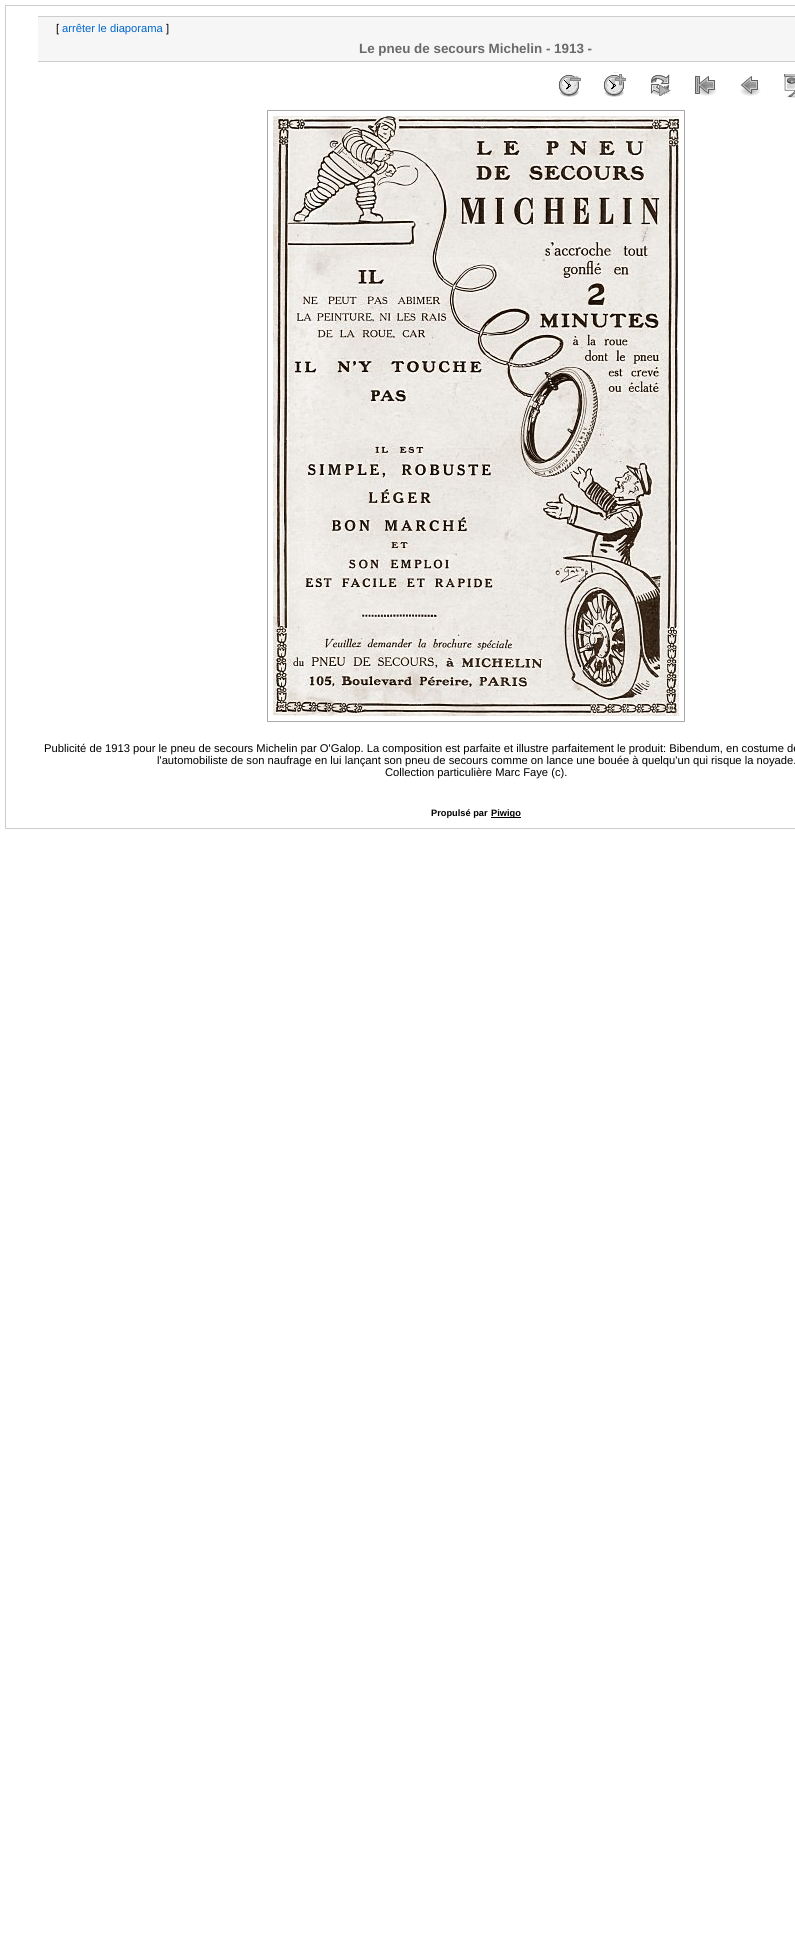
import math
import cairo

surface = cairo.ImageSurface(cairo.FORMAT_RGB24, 795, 1949)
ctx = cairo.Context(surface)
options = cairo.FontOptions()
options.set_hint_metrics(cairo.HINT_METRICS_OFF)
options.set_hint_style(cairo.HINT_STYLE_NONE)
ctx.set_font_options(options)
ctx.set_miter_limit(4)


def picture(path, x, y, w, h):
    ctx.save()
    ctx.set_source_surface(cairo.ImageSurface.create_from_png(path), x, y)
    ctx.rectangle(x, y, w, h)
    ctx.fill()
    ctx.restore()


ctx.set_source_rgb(1, 1, 1)
ctx.paint()
ctx.rectangle(5.5, 5.5, 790, 823)
ctx.set_source_rgb(0.8, 0.8, 0.8)
ctx.set_line_width(1)
ctx.stroke()
ctx.set_source_rgb(0.961, 0.961, 0.961)
ctx.rectangle(38, 17, 757, 44)
ctx.fill()
ctx.set_source_rgb(0.804, 0.804, 0.804)
ctx.rectangle(38, 16, 757, 1)
ctx.fill()
ctx.rectangle(38, 61, 757, 1)
ctx.fill()
ctx.select_font_face("Liberation Sans")
ctx.set_font_size(11.2)
ctx.set_source_rgb(0, 0, 0)
ctx.move_to(56, 32)
ctx.show_text("[")
ctx.set_source_rgb(0, 0.4, 0.8)
ctx.move_to(62, 32)
ctx.show_text("arrêter le diaporama")
ctx.set_source_rgb(0, 0, 0)
ctx.move_to(166, 32)
ctx.show_text("]")
ctx.select_font_face("Liberation Sans", cairo.FONT_SLANT_NORMAL, cairo.FONT_WEIGHT_BOLD)
ctx.set_font_size(13.4)
ctx.set_source_rgb(0.412, 0.412, 0.412)
ctx.move_to(359, 53)
ctx.show_text("Le pneu de secours Michelin - 1913 -")
picture("img1.png", 558, 75, 23, 22)
picture("img2.png", 603, 72, 23, 25)
picture("img3.png", 650, 74, 22, 22)
picture("img4.png", 695, 76, 22, 20)
picture("img5.png", 740, 76, 21, 20)
picture("img6.png", 784, 74, 11, 24)
ctx.rectangle(267.5, 110.5, 417, 611)
ctx.set_source_rgb(0.667, 0.667, 0.667)
ctx.stroke()
picture("img7.png", 273, 116, 406, 600)
ctx.select_font_face("Liberation Sans")
ctx.set_font_size(11.2)
ctx.set_source_rgb(0, 0, 0)
ctx.move_to(44, 752)
ctx.show_text("Publicité de 1913 pour le pneu de secours Michelin par O'Galop. La composition est parfaite et illustre parfaitement le produit: Bibendum, en costume de")
ctx.move_to(157, 764)
ctx.show_text("l'automobiliste de son naufrage en lui lançant son pneu de secours comme on lance une bouée à quelqu'un qui risque la noyade.")
ctx.move_to(385, 776)
ctx.show_text("Collection particulière Marc Faye (c).")
ctx.select_font_face("Liberation Sans", cairo.FONT_SLANT_NORMAL, cairo.FONT_WEIGHT_BOLD)
ctx.set_font_size(9.25)
ctx.move_to(431, 816)
ctx.show_text("Propulsé par")
ctx.rectangle(491, 817, 30, 1)
ctx.fill()
ctx.move_to(491, 816)
ctx.show_text("Piwigo")
surface.write_to_png("page.png")
